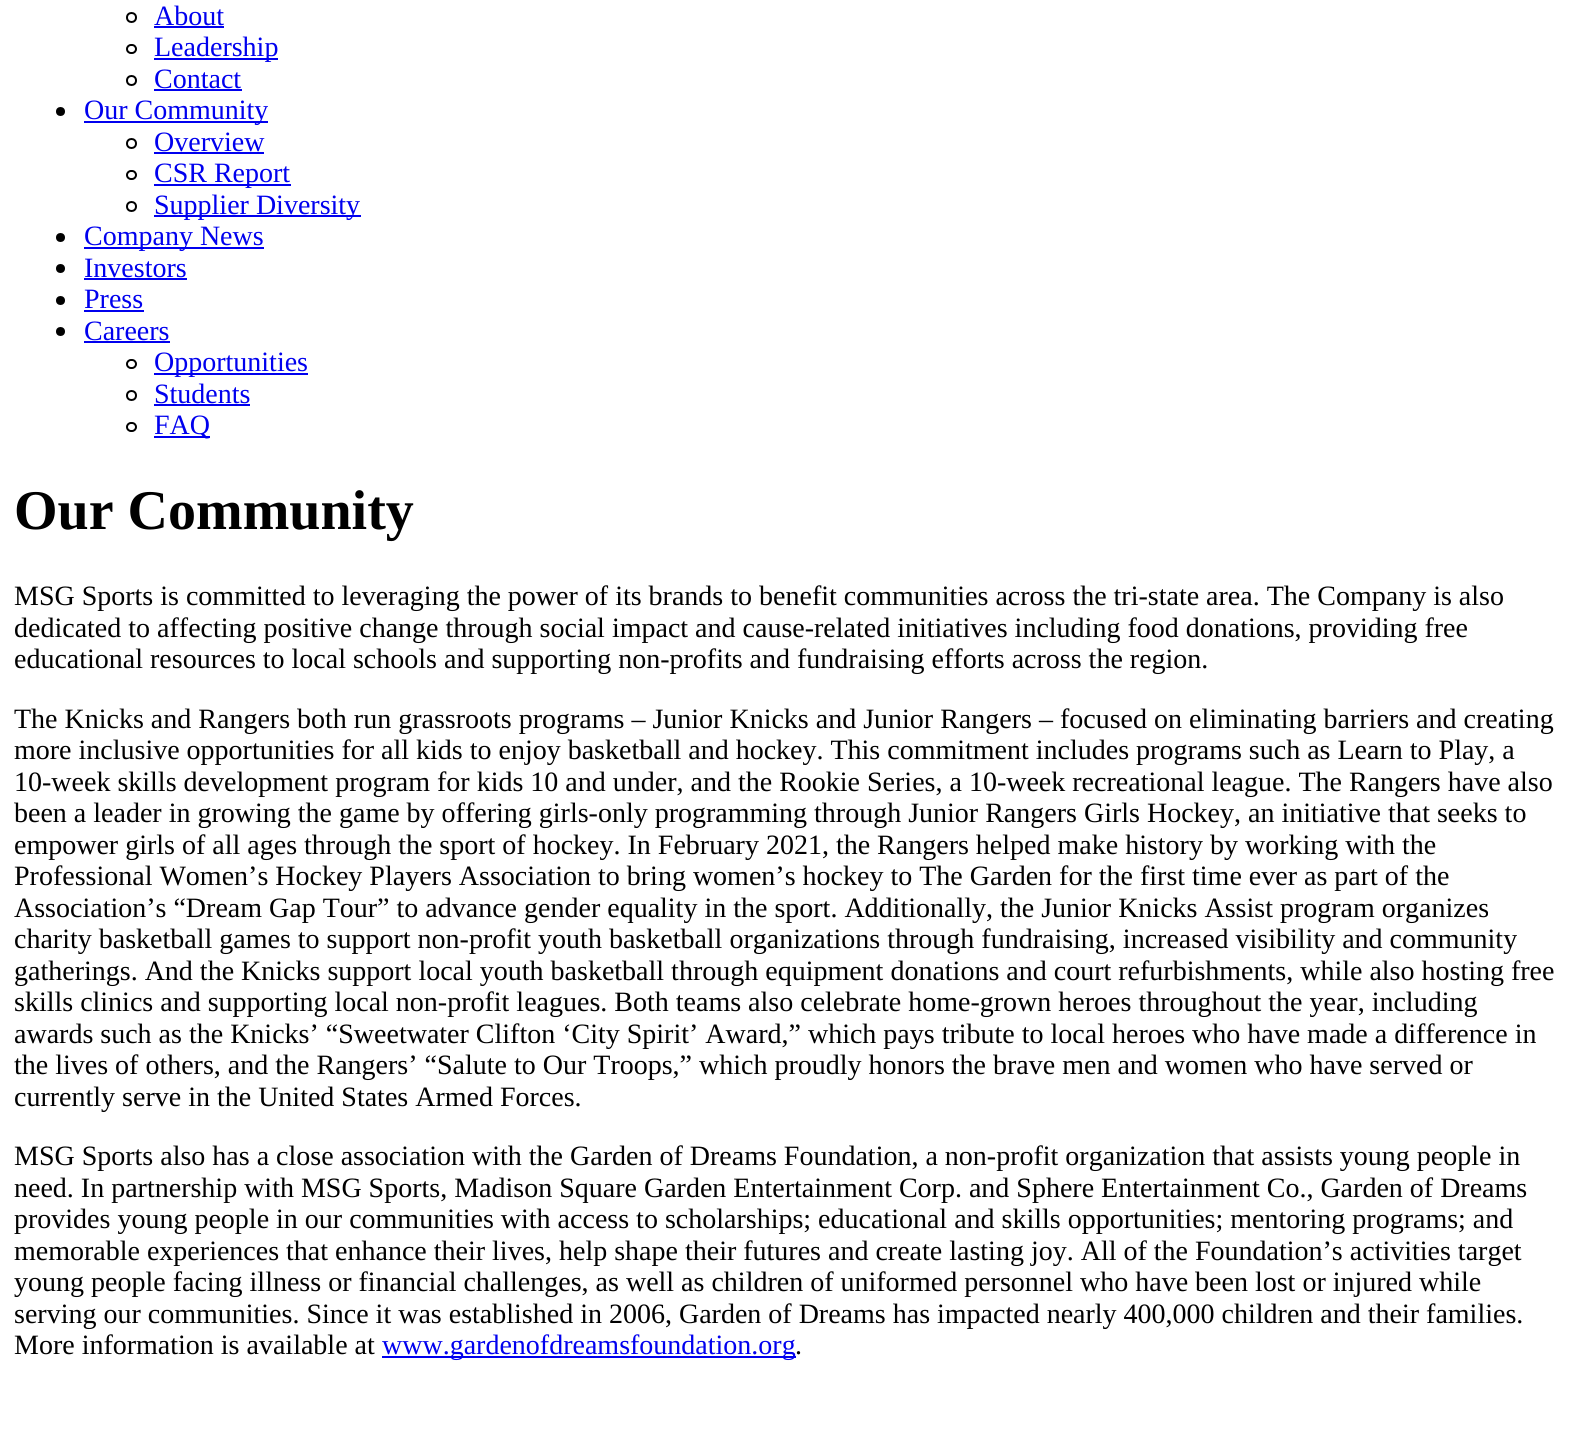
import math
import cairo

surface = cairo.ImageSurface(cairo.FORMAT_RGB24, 1571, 1446)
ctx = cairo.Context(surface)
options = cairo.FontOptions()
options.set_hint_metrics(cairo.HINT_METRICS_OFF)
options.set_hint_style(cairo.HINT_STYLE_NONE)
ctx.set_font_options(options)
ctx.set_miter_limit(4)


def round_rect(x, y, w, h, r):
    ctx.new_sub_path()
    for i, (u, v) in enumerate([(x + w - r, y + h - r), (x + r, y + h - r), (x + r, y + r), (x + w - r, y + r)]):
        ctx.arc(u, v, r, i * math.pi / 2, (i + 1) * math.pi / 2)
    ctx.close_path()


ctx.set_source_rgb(1, 1, 1)
ctx.paint()
ctx.arc(131.5, 17.5, 4.5, 0, 2 * math.pi)
ctx.set_source_rgb(0, 0, 0)
ctx.stroke()
ctx.select_font_face("Liberation Serif")
ctx.set_font_size(28)
ctx.set_source_rgb(0, 0, 0.933)
ctx.move_to(154, 25)
ctx.show_text("About")
ctx.rectangle(154, 26, 70, 2)
ctx.fill()
round_rect(127, 45, 9, 8, 4)
ctx.set_source_rgb(0, 0, 0)
ctx.stroke()
ctx.set_source_rgb(0, 0, 0.933)
ctx.rectangle(154, 58, 124, 2)
ctx.fill()
ctx.move_to(154, 56)
ctx.show_text("Leadership")
ctx.new_path()
ctx.arc(131.5, 80.5, 4.5, 0, 2 * math.pi)
ctx.set_source_rgb(0, 0, 0)
ctx.stroke()
ctx.set_source_rgb(0, 0, 0.933)
ctx.move_to(154, 88)
ctx.show_text("Contact")
ctx.rectangle(154, 89, 88, 2)
ctx.fill()
ctx.set_source_rgb(0, 0, 0)
ctx.arc(60.5, 111.5, 4.5, 0, 2 * math.pi)
ctx.fill()
ctx.set_source_rgb(0, 0, 0.933)
ctx.rectangle(84, 121, 184, 2)
ctx.fill()
ctx.move_to(84, 119)
ctx.show_text("Our Community")
ctx.new_path()
ctx.arc(131.5, 143.5, 4.5, 0, 2 * math.pi)
ctx.set_source_rgb(0, 0, 0)
ctx.stroke()
ctx.set_source_rgb(0, 0, 0.933)
ctx.move_to(154, 151)
ctx.show_text("Overview")
ctx.rectangle(154, 152, 110, 2)
ctx.fill()
round_rect(127, 171, 9, 8, 4)
ctx.set_source_rgb(0, 0, 0)
ctx.stroke()
ctx.set_source_rgb(0, 0, 0.933)
ctx.rectangle(154, 184, 137, 2)
ctx.fill()
ctx.move_to(154, 182)
ctx.show_text("CSR Report")
ctx.new_path()
ctx.arc(131.5, 206.5, 4.5, 0, 2 * math.pi)
ctx.set_source_rgb(0, 0, 0)
ctx.stroke()
ctx.set_source_rgb(0, 0, 0.933)
ctx.rectangle(154, 215, 207, 2)
ctx.fill()
ctx.move_to(154, 214)
ctx.show_text("Supplier Diversity")
ctx.set_source_rgb(0, 0, 0)
ctx.new_path()
ctx.arc(60.5, 237.5, 4.5, 0, 2 * math.pi)
ctx.fill()
ctx.set_source_rgb(0, 0, 0.933)
ctx.rectangle(84, 247, 180, 2)
ctx.fill()
ctx.move_to(84, 245)
ctx.show_text("Company News")
ctx.set_source_rgb(0, 0, 0)
ctx.new_path()
ctx.arc(60.5, 268.5, 4.5, 0, 2 * math.pi)
ctx.fill()
ctx.set_source_rgb(0, 0, 0.933)
ctx.move_to(84, 277)
ctx.show_text("Investors")
ctx.rectangle(84, 278, 103, 2)
ctx.fill()
ctx.set_source_rgb(0, 0, 0)
ctx.arc(60.5, 300.5, 4.5, 0, 2 * math.pi)
ctx.fill()
ctx.set_source_rgb(0, 0, 0.933)
ctx.move_to(84, 308)
ctx.show_text("Press")
ctx.rectangle(84, 310, 60, 2)
ctx.fill()
ctx.set_source_rgb(0, 0, 0)
ctx.arc(60.5, 331.5, 4.5, 0, 2 * math.pi)
ctx.fill()
ctx.set_source_rgb(0, 0, 0.933)
ctx.move_to(84, 340)
ctx.show_text("Careers")
ctx.rectangle(84, 341, 86, 2)
ctx.fill()
round_rect(127, 360, 9, 8, 4)
ctx.set_source_rgb(0, 0, 0)
ctx.stroke()
ctx.set_source_rgb(0, 0, 0.933)
ctx.rectangle(154, 373, 154, 2)
ctx.fill()
ctx.move_to(154, 371)
ctx.show_text("Opportunities")
ctx.new_path()
ctx.arc(131.5, 395.5, 4.5, 0, 2 * math.pi)
ctx.set_source_rgb(0, 0, 0)
ctx.stroke()
ctx.set_source_rgb(0, 0, 0.933)
ctx.move_to(154, 403)
ctx.show_text("Students")
ctx.rectangle(154, 404, 96, 2)
ctx.fill()
round_rect(127, 423, 9, 8, 4)
ctx.set_source_rgb(0, 0, 0)
ctx.stroke()
ctx.set_source_rgb(0, 0, 0.933)
ctx.rectangle(154, 436, 56, 2)
ctx.fill()
ctx.move_to(154, 434)
ctx.show_text("FAQ")
ctx.select_font_face("Liberation Serif", cairo.FONT_SLANT_NORMAL, cairo.FONT_WEIGHT_BOLD)
ctx.set_font_size(56)
ctx.set_source_rgb(0, 0, 0)
ctx.move_to(14, 529)
ctx.show_text("Our Community")
ctx.select_font_face("Liberation Serif")
ctx.set_font_size(28)
ctx.move_to(14, 605)
ctx.show_text("MSG Sports is committed to leveraging the power of its brands to benefit communities across the tri-state area. The Company is also")
ctx.move_to(14, 637)
ctx.show_text("dedicated to affecting positive change through social impact and cause-related initiatives including food donations, providing free")
ctx.move_to(14, 668)
ctx.show_text("educational resources to local schools and supporting non-profits and fundraising efforts across the region.")
ctx.move_to(14, 728)
ctx.show_text("The Knicks and Rangers both run grassroots programs – Junior Knicks and Junior Rangers – focused on eliminating barriers and creating")
ctx.move_to(14, 759)
ctx.show_text("more inclusive opportunities for all kids to enjoy basketball and hockey. This commitment includes programs such as Learn to Play, a")
ctx.move_to(14, 791)
ctx.show_text("10-week skills development program for kids 10 and under, and the Rookie Series, a 10-week recreational league. The Rangers have also")
ctx.move_to(14, 822)
ctx.show_text("been a leader in growing the game by offering girls-only programming through Junior Rangers Girls Hockey, an initiative that seeks to")
ctx.move_to(14, 854)
ctx.show_text("empower girls of all ages through the sport of hockey. In February 2021, the Rangers helped make history by working with the")
ctx.move_to(14, 885)
ctx.show_text("Professional Women’s Hockey Players Association to bring women’s hockey to The Garden for the first time ever as part of the")
ctx.move_to(14, 917)
ctx.show_text("Association’s “Dream Gap Tour” to advance gender equality in the sport. Additionally, the Junior Knicks Assist program organizes")
ctx.move_to(14, 948)
ctx.show_text("charity basketball games to support non-profit youth basketball organizations through fundraising, increased visibility and community")
ctx.move_to(14, 980)
ctx.show_text("gatherings. And the Knicks support local youth basketball through equipment donations and court refurbishments, while also hosting free")
ctx.move_to(14, 1011)
ctx.show_text("skills clinics and supporting local non-profit leagues. Both teams also celebrate home-grown heroes throughout the year, including")
ctx.move_to(14, 1043)
ctx.show_text("awards such as the Knicks’ “Sweetwater Clifton ‘City Spirit’ Award,” which pays tribute to local heroes who have made a difference in")
ctx.move_to(14, 1074)
ctx.show_text("the lives of others, and the Rangers’ “Salute to Our Troops,” which proudly honors the brave men and women who have served or")
ctx.move_to(14, 1106)
ctx.show_text("currently serve in the United States Armed Forces.")
ctx.move_to(14, 1165)
ctx.show_text("MSG Sports also has a close association with the Garden of Dreams Foundation, a non-profit organization that assists young people in")
ctx.move_to(14, 1197)
ctx.show_text("need. In partnership with MSG Sports, Madison Square Garden Entertainment Corp. and Sphere Entertainment Co., Garden of Dreams")
ctx.move_to(14, 1228)
ctx.show_text("provides young people in our communities with access to scholarships; educational and skills opportunities; mentoring programs; and")
ctx.move_to(14, 1260)
ctx.show_text("memorable experiences that enhance their lives, help shape their futures and create lasting joy. All of the Foundation’s activities target")
ctx.move_to(14, 1291)
ctx.show_text("young people facing illness or financial challenges, as well as children of uniformed personnel who have been lost or injured while")
ctx.move_to(14, 1323)
ctx.show_text("serving our communities. Since it was established in 2006, Garden of Dreams has impacted nearly 400,000 children and their families.")
ctx.move_to(14, 1354)
ctx.show_text("More information is available at")
ctx.set_source_rgb(0, 0, 0.933)
ctx.rectangle(382, 1356, 414, 2)
ctx.fill()
ctx.move_to(382, 1354)
ctx.show_text("www.gardenofdreamsfoundation.org")
ctx.set_source_rgb(0, 0, 0)
ctx.move_to(795, 1354)
ctx.show_text(".")
surface.write_to_png("page.png")
